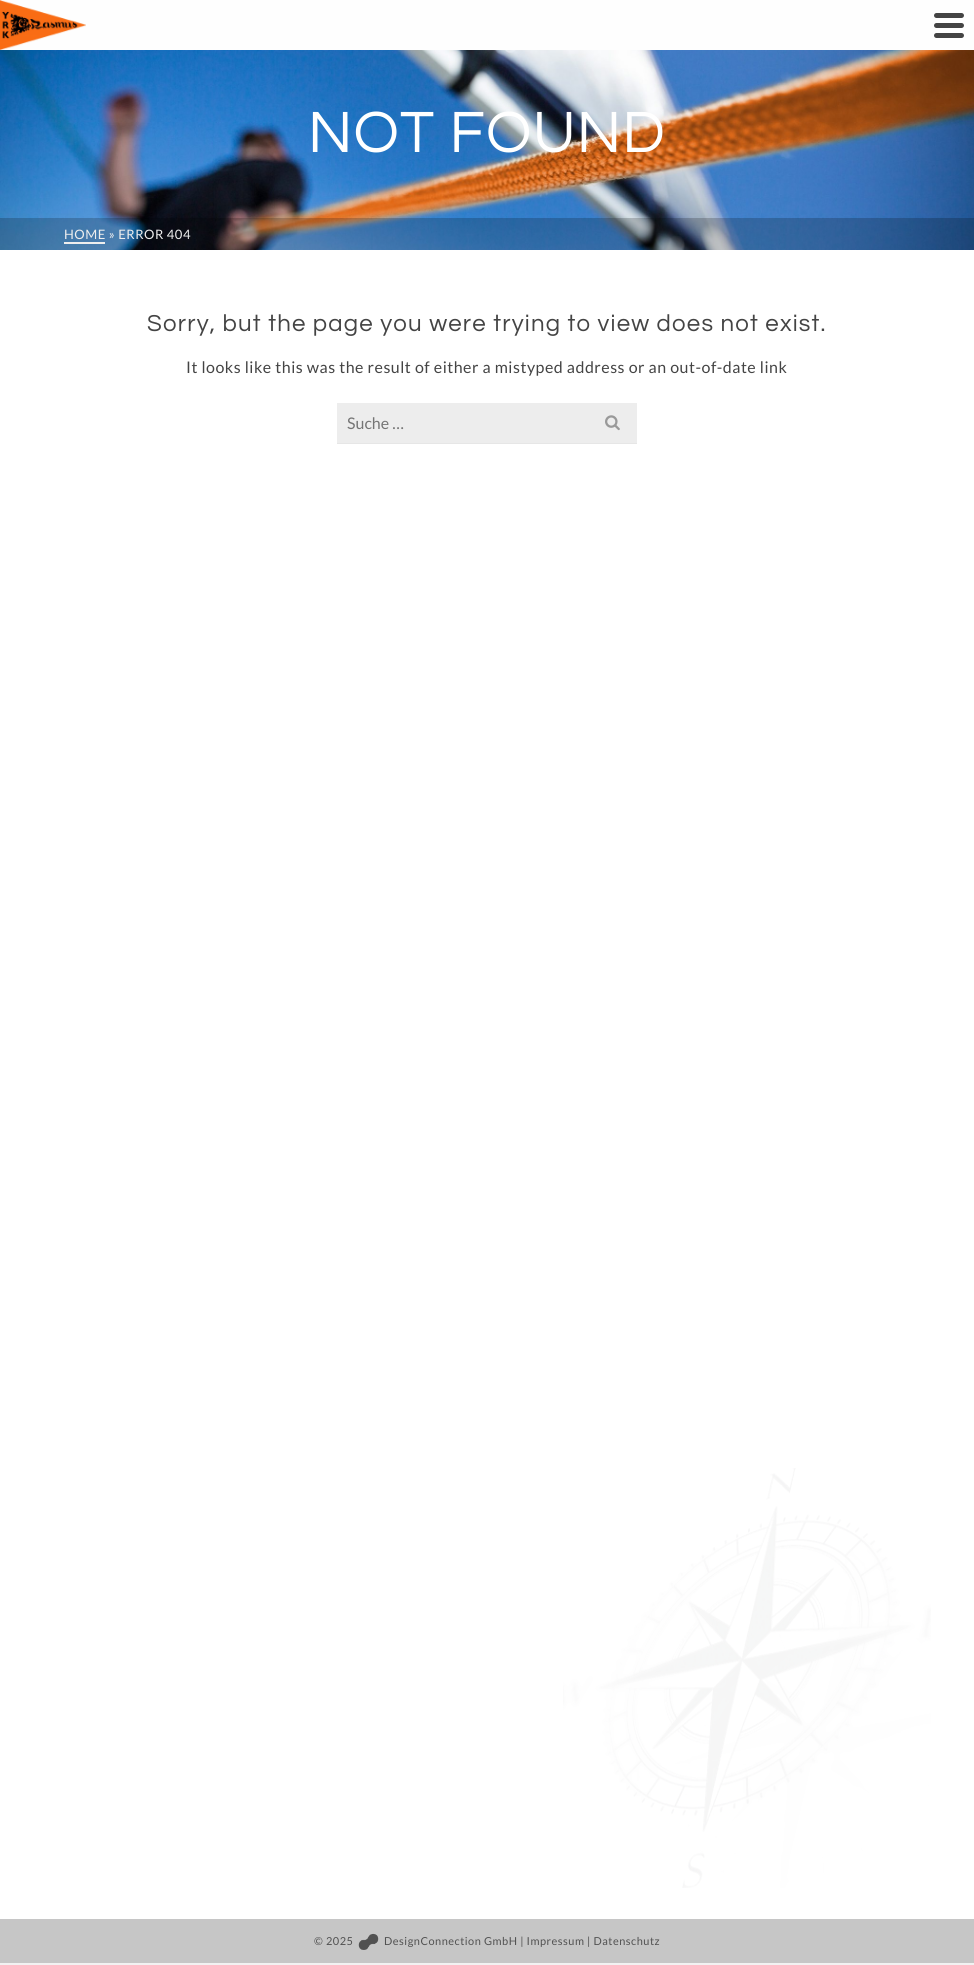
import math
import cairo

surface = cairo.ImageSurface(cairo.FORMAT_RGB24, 974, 1965)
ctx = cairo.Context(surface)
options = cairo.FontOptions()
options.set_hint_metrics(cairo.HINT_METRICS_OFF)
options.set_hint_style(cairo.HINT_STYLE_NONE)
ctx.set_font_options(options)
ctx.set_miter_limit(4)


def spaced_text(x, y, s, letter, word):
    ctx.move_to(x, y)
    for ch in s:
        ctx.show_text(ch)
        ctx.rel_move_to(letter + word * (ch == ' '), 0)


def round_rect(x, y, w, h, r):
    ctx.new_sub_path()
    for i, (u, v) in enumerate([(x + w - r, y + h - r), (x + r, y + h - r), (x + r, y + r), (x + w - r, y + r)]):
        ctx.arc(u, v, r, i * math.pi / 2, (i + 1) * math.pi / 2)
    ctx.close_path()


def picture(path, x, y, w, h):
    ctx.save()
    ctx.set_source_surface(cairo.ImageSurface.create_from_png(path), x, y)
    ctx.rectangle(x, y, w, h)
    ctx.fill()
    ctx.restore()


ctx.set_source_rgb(0.949, 0.949, 0.949)
ctx.paint()
ctx.set_source_rgb(0.996, 0.996, 0.996)
ctx.rectangle(0, 0, 974, 50)
ctx.fill()
picture("img1.png", 0, 0, 86, 50)
ctx.set_source_rgb(0.267, 0.267, 0.267)
round_rect(934, 13, 30, 5, 2.5)
ctx.fill()
round_rect(934, 23, 30, 5, 2.5)
ctx.fill()
round_rect(934, 33, 30, 5, 2.5)
ctx.fill()
ctx.set_source_rgb(1, 1, 1)
ctx.rectangle(0, 250, 974, 1669)
ctx.fill()
picture("img2.png", 563, 1468, 368, 420)
picture("img3.png", 0, 50, 974, 200)
ctx.select_font_face("Questrial")
ctx.set_font_size(60.5)
spaced_text(308, 152, "NOT FOUND", 1.2, 0)
ctx.set_source_rgba(0, 0, 0, 0.2)
ctx.rectangle(0, 218, 974, 32)
ctx.fill()
ctx.select_font_face("Lato")
ctx.set_font_size(13)
ctx.set_source_rgb(0.933, 0.933, 0.933)
spaced_text(64, 239, "HOME » ERROR 404", 0.5, 0)
ctx.rectangle(64, 242, 41, 2)
ctx.fill()
ctx.select_font_face("Questrial")
ctx.set_font_size(24)
ctx.set_source_rgb(0.267, 0.267, 0.267)
spaced_text(147, 331, "Sorry, but the page you were trying to view does not exist.", 1.2, 0)
ctx.select_font_face("Lato")
ctx.set_font_size(16)
spaced_text(186, 373, "It looks like this was the result of either a mistyped address or an out-of-date link", 0.5, 0)
ctx.set_source_rgb(0.902, 0.902, 0.902)
ctx.rectangle(337, 443, 300, 1)
ctx.fill()
ctx.set_source_rgb(0.929, 0.929, 0.929)
ctx.rectangle(337, 403, 300, 40)
ctx.fill()
ctx.set_source_rgb(0.459, 0.459, 0.459)
ctx.move_to(347, 429)
ctx.show_text("Suche …")
picture("img4.png", 605, 415, 15, 16)
ctx.set_source_rgb(0.776, 0.776, 0.776)
ctx.rectangle(0, 1919, 974, 44)
ctx.fill()
ctx.set_font_size(11)
ctx.set_source_rgb(0.318, 0.318, 0.318)
spaced_text(314, 1945, "© 2025", 0.5, 0)
picture("img5.png", 358, 1933, 21, 17)
spaced_text(384, 1945, "DesignConnection GmbH | Impressum | Datenschutz", 0.5, 0)
surface.write_to_png("page.png")
